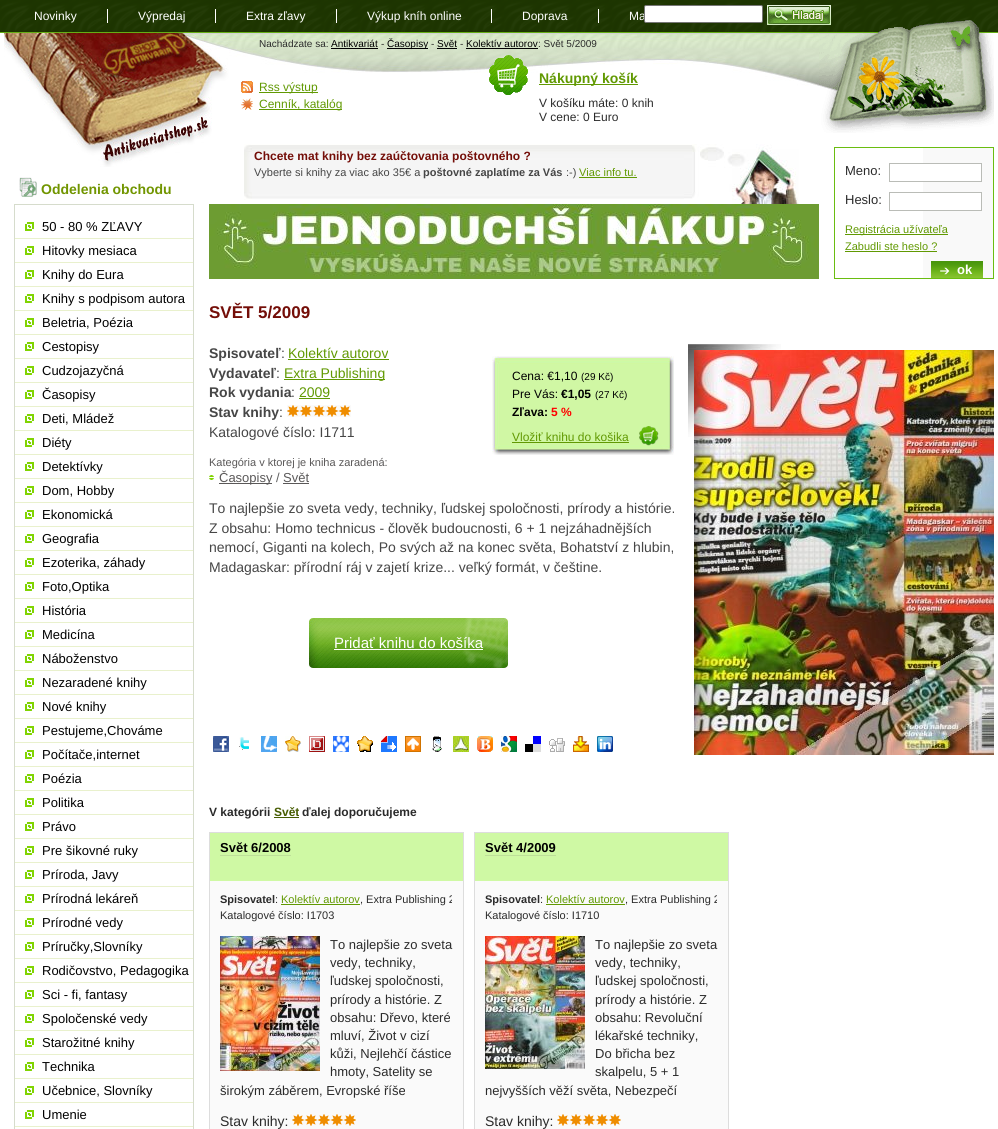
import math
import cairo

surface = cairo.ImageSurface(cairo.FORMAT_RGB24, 998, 1129)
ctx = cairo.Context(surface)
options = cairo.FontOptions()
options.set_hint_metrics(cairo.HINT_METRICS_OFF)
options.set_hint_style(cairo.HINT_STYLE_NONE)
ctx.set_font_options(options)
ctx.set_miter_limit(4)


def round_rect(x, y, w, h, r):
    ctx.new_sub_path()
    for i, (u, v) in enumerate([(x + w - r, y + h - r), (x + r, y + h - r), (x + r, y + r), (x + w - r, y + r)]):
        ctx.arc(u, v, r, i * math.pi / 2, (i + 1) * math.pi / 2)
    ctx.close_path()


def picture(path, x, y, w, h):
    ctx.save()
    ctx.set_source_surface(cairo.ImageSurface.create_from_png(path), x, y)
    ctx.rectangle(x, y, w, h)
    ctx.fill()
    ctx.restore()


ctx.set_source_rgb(1, 1, 1)
ctx.paint()
picture("img1.png", 0, 0, 998, 33)
ctx.select_font_face("Liberation Sans")
ctx.set_font_size(12)
ctx.set_source_rgb(1, 1, 1)
ctx.move_to(34, 20)
ctx.show_text("Novinky")
ctx.rectangle(107, 9, 1, 14)
ctx.fill()
ctx.move_to(138, 20)
ctx.show_text("Výpredaj")
ctx.rectangle(215, 9, 1, 14)
ctx.fill()
ctx.move_to(246, 20)
ctx.show_text("Extra zľavy")
ctx.rectangle(336, 9, 1, 14)
ctx.fill()
ctx.move_to(367, 20)
ctx.show_text("Výkup kníh online")
ctx.rectangle(491, 9, 1, 14)
ctx.fill()
ctx.move_to(522, 20)
ctx.show_text("Doprava")
ctx.rectangle(598, 9, 1, 14)
ctx.fill()
ctx.move_to(629, 20)
ctx.show_text("Ma")
round_rect(644.5, 5.5, 118, 17, 1.5)
ctx.fill_preserve()
ctx.set_source_rgb(0.463, 0.463, 0.463)
ctx.set_line_width(1)
ctx.stroke()
picture("img4.png", 819, 20, 175, 113)
picture("img2.png", 767, 5, 64, 20)
picture("img3.png", 4, 33, 225, 134)
picture("img5.png", 229, 33, 590, 53)
ctx.set_font_size(10)
ctx.set_source_rgb(0.169, 0.169, 0.169)
ctx.move_to(259, 47)
ctx.show_text("Nachádzate sa:")
ctx.set_source_rgb(0, 0, 0)
ctx.move_to(331, 47)
ctx.show_text("Antikvariát")
ctx.rectangle(331, 48, 47, 1)
ctx.fill()
ctx.set_source_rgb(0.169, 0.169, 0.169)
ctx.move_to(381, 47)
ctx.show_text("-")
ctx.set_source_rgb(0, 0, 0)
ctx.rectangle(387, 48, 41, 1)
ctx.fill()
ctx.move_to(387, 47)
ctx.show_text("Časopisy")
ctx.set_source_rgb(0.169, 0.169, 0.169)
ctx.move_to(431, 47)
ctx.show_text("-")
ctx.set_source_rgb(0, 0, 0)
ctx.move_to(437, 47)
ctx.show_text("Svět")
ctx.rectangle(437, 48, 20, 1)
ctx.fill()
ctx.set_source_rgb(0.169, 0.169, 0.169)
ctx.move_to(460, 47)
ctx.show_text("-")
ctx.set_source_rgb(0, 0, 0)
ctx.move_to(466, 47)
ctx.show_text("Kolektív autorov")
ctx.rectangle(466, 48, 72, 1)
ctx.fill()
ctx.set_source_rgb(0.169, 0.169, 0.169)
ctx.move_to(538, 47)
ctx.show_text(": Svět 5/2009")
picture("img6.png", 241, 81, 12, 12)
ctx.set_source_rgb(0.38, 0.6, 0.008)
ctx.rectangle(259, 92, 59, 1)
ctx.fill()
ctx.set_font_size(12)
ctx.move_to(259, 91)
ctx.show_text("Rss výstup")
picture("img7.png", 241, 98, 12, 12)
ctx.rectangle(259, 109, 83, 1)
ctx.fill()
ctx.move_to(259, 108)
ctx.show_text("Cenník, katalóg")
picture("img8.png", 489, 55, 39, 40)
ctx.rectangle(539, 84, 99, 1)
ctx.fill()
ctx.select_font_face("Liberation Sans", cairo.FONT_SLANT_NORMAL, cairo.FONT_WEIGHT_BOLD)
ctx.set_font_size(14)
ctx.move_to(539, 83)
ctx.show_text("Nákupný košík")
ctx.select_font_face("Liberation Sans")
ctx.set_font_size(12)
ctx.set_source_rgb(0.169, 0.169, 0.169)
ctx.move_to(539, 107)
ctx.show_text("V košíku máte: 0 knih")
ctx.move_to(539, 121)
ctx.show_text("V cene: 0 Euro")
picture("img9.png", 19, 177, 18, 20)
ctx.select_font_face("Liberation Sans", cairo.FONT_SLANT_NORMAL, cairo.FONT_WEIGHT_BOLD)
ctx.set_font_size(14)
ctx.set_source_rgb(0.443, 0.584, 0)
ctx.move_to(41, 194)
ctx.show_text("Oddelenia obchodu")
ctx.rectangle(14.5, 204.5, 179, 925)
ctx.set_source_rgb(0.839, 0.863, 0.8)
ctx.stroke()
picture("img10.png", 25, 222, 9, 9)
ctx.select_font_face("Liberation Sans")
ctx.set_font_size(13)
ctx.set_source_rgb(0, 0, 0)
ctx.move_to(42, 231)
ctx.show_text("50 - 80 % ZĽAVY")
picture("img10.png", 25, 246, 9, 9)
ctx.set_source_rgb(0.914, 0.945, 0.804)
ctx.rectangle(15, 238, 178, 1)
ctx.fill()
ctx.set_source_rgb(0, 0, 0)
ctx.move_to(42, 255)
ctx.show_text("Hitovky mesiaca")
picture("img10.png", 25, 270, 9, 9)
ctx.set_source_rgb(0.914, 0.945, 0.804)
ctx.rectangle(15, 262, 178, 1)
ctx.fill()
ctx.set_source_rgb(0, 0, 0)
ctx.move_to(42, 279)
ctx.show_text("Knihy do Eura")
picture("img10.png", 25, 294, 9, 9)
ctx.set_source_rgb(0.914, 0.945, 0.804)
ctx.rectangle(15, 286, 178, 1)
ctx.fill()
ctx.set_source_rgb(0, 0, 0)
ctx.move_to(42, 303)
ctx.show_text("Knihy s podpisom autora")
picture("img10.png", 25, 318, 9, 9)
ctx.set_source_rgb(0.914, 0.945, 0.804)
ctx.rectangle(15, 310, 178, 1)
ctx.fill()
ctx.set_source_rgb(0, 0, 0)
ctx.move_to(42, 327)
ctx.show_text("Beletria, Poézia")
picture("img10.png", 25, 342, 9, 9)
ctx.set_source_rgb(0.914, 0.945, 0.804)
ctx.rectangle(15, 334, 178, 1)
ctx.fill()
ctx.set_source_rgb(0, 0, 0)
ctx.move_to(42, 351)
ctx.show_text("Cestopisy")
picture("img10.png", 25, 366, 9, 9)
ctx.set_source_rgb(0.914, 0.945, 0.804)
ctx.rectangle(15, 358, 178, 1)
ctx.fill()
ctx.set_source_rgb(0, 0, 0)
ctx.move_to(42, 375)
ctx.show_text("Cudzojazyčná")
picture("img10.png", 25, 390, 9, 9)
ctx.set_source_rgb(0.914, 0.945, 0.804)
ctx.rectangle(15, 382, 178, 1)
ctx.fill()
ctx.set_source_rgb(0, 0, 0)
ctx.move_to(42, 399)
ctx.show_text("Časopisy")
picture("img10.png", 25, 414, 9, 9)
ctx.set_source_rgb(0.914, 0.945, 0.804)
ctx.rectangle(15, 406, 178, 1)
ctx.fill()
ctx.set_source_rgb(0, 0, 0)
ctx.move_to(42, 423)
ctx.show_text("Deti, Mládež")
picture("img10.png", 25, 438, 9, 9)
ctx.set_source_rgb(0.914, 0.945, 0.804)
ctx.rectangle(15, 430, 178, 1)
ctx.fill()
ctx.set_source_rgb(0, 0, 0)
ctx.move_to(42, 447)
ctx.show_text("Diéty")
picture("img10.png", 25, 462, 9, 9)
ctx.set_source_rgb(0.914, 0.945, 0.804)
ctx.rectangle(15, 454, 178, 1)
ctx.fill()
ctx.set_source_rgb(0, 0, 0)
ctx.move_to(42, 471)
ctx.show_text("Detektívky")
picture("img10.png", 25, 486, 9, 9)
ctx.set_source_rgb(0.914, 0.945, 0.804)
ctx.rectangle(15, 478, 178, 1)
ctx.fill()
ctx.set_source_rgb(0, 0, 0)
ctx.move_to(42, 495)
ctx.show_text("Dom, Hobby")
picture("img10.png", 25, 510, 9, 9)
ctx.set_source_rgb(0.914, 0.945, 0.804)
ctx.rectangle(15, 502, 178, 1)
ctx.fill()
ctx.set_source_rgb(0, 0, 0)
ctx.move_to(42, 519)
ctx.show_text("Ekonomická")
picture("img10.png", 25, 534, 9, 9)
ctx.set_source_rgb(0.914, 0.945, 0.804)
ctx.rectangle(15, 526, 178, 1)
ctx.fill()
ctx.set_source_rgb(0, 0, 0)
ctx.move_to(42, 543)
ctx.show_text("Geografia")
picture("img10.png", 25, 558, 9, 9)
ctx.set_source_rgb(0.914, 0.945, 0.804)
ctx.rectangle(15, 550, 178, 1)
ctx.fill()
ctx.set_source_rgb(0, 0, 0)
ctx.move_to(42, 567)
ctx.show_text("Ezoterika, záhady")
picture("img10.png", 25, 582, 9, 9)
ctx.set_source_rgb(0.914, 0.945, 0.804)
ctx.rectangle(15, 574, 178, 1)
ctx.fill()
ctx.set_source_rgb(0, 0, 0)
ctx.move_to(42, 591)
ctx.show_text("Foto,Optika")
picture("img10.png", 25, 606, 9, 9)
ctx.set_source_rgb(0.914, 0.945, 0.804)
ctx.rectangle(15, 598, 178, 1)
ctx.fill()
ctx.set_source_rgb(0, 0, 0)
ctx.move_to(42, 615)
ctx.show_text("História")
picture("img10.png", 25, 630, 9, 9)
ctx.set_source_rgb(0.914, 0.945, 0.804)
ctx.rectangle(15, 622, 178, 1)
ctx.fill()
ctx.set_source_rgb(0, 0, 0)
ctx.move_to(42, 639)
ctx.show_text("Medicína")
picture("img10.png", 25, 654, 9, 9)
ctx.set_source_rgb(0.914, 0.945, 0.804)
ctx.rectangle(15, 646, 178, 1)
ctx.fill()
ctx.set_source_rgb(0, 0, 0)
ctx.move_to(42, 663)
ctx.show_text("Náboženstvo")
picture("img10.png", 25, 678, 9, 9)
ctx.set_source_rgb(0.914, 0.945, 0.804)
ctx.rectangle(15, 670, 178, 1)
ctx.fill()
ctx.set_source_rgb(0, 0, 0)
ctx.move_to(42, 687)
ctx.show_text("Nezaradené knihy")
picture("img10.png", 25, 702, 9, 9)
ctx.set_source_rgb(0.914, 0.945, 0.804)
ctx.rectangle(15, 694, 178, 1)
ctx.fill()
ctx.set_source_rgb(0, 0, 0)
ctx.move_to(42, 711)
ctx.show_text("Nové knihy")
picture("img10.png", 25, 726, 9, 9)
ctx.set_source_rgb(0.914, 0.945, 0.804)
ctx.rectangle(15, 718, 178, 1)
ctx.fill()
ctx.set_source_rgb(0, 0, 0)
ctx.move_to(42, 735)
ctx.show_text("Pestujeme,Chováme")
picture("img10.png", 25, 750, 9, 9)
ctx.set_source_rgb(0.914, 0.945, 0.804)
ctx.rectangle(15, 742, 178, 1)
ctx.fill()
ctx.set_source_rgb(0, 0, 0)
ctx.move_to(42, 759)
ctx.show_text("Počítače,internet")
picture("img10.png", 25, 774, 9, 9)
ctx.set_source_rgb(0.914, 0.945, 0.804)
ctx.rectangle(15, 766, 178, 1)
ctx.fill()
ctx.set_source_rgb(0, 0, 0)
ctx.move_to(42, 783)
ctx.show_text("Poézia")
picture("img10.png", 25, 798, 9, 9)
ctx.set_source_rgb(0.914, 0.945, 0.804)
ctx.rectangle(15, 790, 178, 1)
ctx.fill()
ctx.set_source_rgb(0, 0, 0)
ctx.move_to(42, 807)
ctx.show_text("Politika")
picture("img10.png", 25, 822, 9, 9)
ctx.set_source_rgb(0.914, 0.945, 0.804)
ctx.rectangle(15, 814, 178, 1)
ctx.fill()
ctx.set_source_rgb(0, 0, 0)
ctx.move_to(42, 831)
ctx.show_text("Právo")
picture("img10.png", 25, 846, 9, 9)
ctx.set_source_rgb(0.914, 0.945, 0.804)
ctx.rectangle(15, 838, 178, 1)
ctx.fill()
ctx.set_source_rgb(0, 0, 0)
ctx.move_to(42, 855)
ctx.show_text("Pre šikovné ruky")
picture("img10.png", 25, 870, 9, 9)
ctx.set_source_rgb(0.914, 0.945, 0.804)
ctx.rectangle(15, 862, 178, 1)
ctx.fill()
ctx.set_source_rgb(0, 0, 0)
ctx.move_to(42, 879)
ctx.show_text("Príroda, Javy")
picture("img10.png", 25, 894, 9, 9)
ctx.set_source_rgb(0.914, 0.945, 0.804)
ctx.rectangle(15, 886, 178, 1)
ctx.fill()
ctx.set_source_rgb(0, 0, 0)
ctx.move_to(42, 903)
ctx.show_text("Prírodná lekáreň")
picture("img10.png", 25, 918, 9, 9)
ctx.set_source_rgb(0.914, 0.945, 0.804)
ctx.rectangle(15, 910, 178, 1)
ctx.fill()
ctx.set_source_rgb(0, 0, 0)
ctx.move_to(42, 927)
ctx.show_text("Prírodné vedy")
picture("img10.png", 25, 942, 9, 9)
ctx.set_source_rgb(0.914, 0.945, 0.804)
ctx.rectangle(15, 934, 178, 1)
ctx.fill()
ctx.set_source_rgb(0, 0, 0)
ctx.move_to(42, 951)
ctx.show_text("Príručky,Slovníky")
picture("img10.png", 25, 966, 9, 9)
ctx.set_source_rgb(0.914, 0.945, 0.804)
ctx.rectangle(15, 958, 178, 1)
ctx.fill()
ctx.set_source_rgb(0, 0, 0)
ctx.move_to(42, 975)
ctx.show_text("Rodičovstvo, Pedagogika")
picture("img10.png", 25, 990, 9, 9)
ctx.set_source_rgb(0.914, 0.945, 0.804)
ctx.rectangle(15, 982, 178, 1)
ctx.fill()
ctx.set_source_rgb(0, 0, 0)
ctx.move_to(42, 999)
ctx.show_text("Sci - fi, fantasy")
picture("img10.png", 25, 1014, 9, 9)
ctx.set_source_rgb(0.914, 0.945, 0.804)
ctx.rectangle(15, 1006, 178, 1)
ctx.fill()
ctx.set_source_rgb(0, 0, 0)
ctx.move_to(42, 1023)
ctx.show_text("Spoločenské vedy")
picture("img10.png", 25, 1038, 9, 9)
ctx.set_source_rgb(0.914, 0.945, 0.804)
ctx.rectangle(15, 1030, 178, 1)
ctx.fill()
ctx.set_source_rgb(0, 0, 0)
ctx.move_to(42, 1047)
ctx.show_text("Starožitné knihy")
picture("img10.png", 25, 1062, 9, 9)
ctx.set_source_rgb(0.914, 0.945, 0.804)
ctx.rectangle(15, 1054, 178, 1)
ctx.fill()
ctx.set_source_rgb(0, 0, 0)
ctx.move_to(42, 1071)
ctx.show_text("Technika")
picture("img10.png", 25, 1086, 9, 9)
ctx.set_source_rgb(0.914, 0.945, 0.804)
ctx.rectangle(15, 1078, 178, 1)
ctx.fill()
ctx.set_source_rgb(0, 0, 0)
ctx.move_to(42, 1095)
ctx.show_text("Učebnice, Slovníky")
picture("img10.png", 25, 1110, 9, 9)
ctx.set_source_rgb(0.914, 0.945, 0.804)
ctx.rectangle(15, 1102, 178, 1)
ctx.fill()
ctx.set_source_rgb(0, 0, 0)
ctx.move_to(42, 1119)
ctx.show_text("Umenie")
ctx.set_source_rgb(0.914, 0.945, 0.804)
ctx.rectangle(15, 1126, 178, 1)
ctx.fill()
picture("img11.png", 244, 144, 555, 60)
ctx.select_font_face("Liberation Sans", cairo.FONT_SLANT_NORMAL, cairo.FONT_WEIGHT_BOLD)
ctx.set_font_size(12)
ctx.set_source_rgb(0.455, 0.055, 0.035)
ctx.move_to(254, 160)
ctx.show_text("Chcete mat knihy bez zaúčtovania poštovného ?")
ctx.select_font_face("Liberation Sans")
ctx.set_font_size(11)
ctx.set_source_rgb(0.275, 0.275, 0.275)
ctx.move_to(254, 176)
ctx.show_text("Vyberte si knihy za viac ako 35€ a")
ctx.select_font_face("Liberation Sans", cairo.FONT_SLANT_NORMAL, cairo.FONT_WEIGHT_BOLD)
ctx.move_to(423, 176)
ctx.show_text("poštovné zaplatíme za Vás")
ctx.select_font_face("Liberation Sans")
ctx.move_to(566, 176)
ctx.show_text(":-)")
ctx.set_source_rgb(0.38, 0.6, 0.008)
ctx.move_to(579, 176)
ctx.show_text("Viac info tu.")
ctx.rectangle(579, 177, 58, 1)
ctx.fill()
picture("img12.png", 209, 204, 610, 75)
ctx.select_font_face("Liberation Sans", cairo.FONT_SLANT_NORMAL, cairo.FONT_WEIGHT_BOLD)
ctx.set_font_size(17)
ctx.set_source_rgb(0.455, 0.055, 0.035)
ctx.move_to(209, 318)
ctx.show_text("SVĚT 5/2009")
ctx.set_font_size(14)
ctx.set_source_rgb(0.275, 0.275, 0.275)
ctx.move_to(209, 358)
ctx.show_text("Spisovateľ")
ctx.select_font_face("Liberation Sans")
ctx.move_to(281, 358)
ctx.show_text(":")
ctx.set_source_rgb(0.38, 0.6, 0.008)
ctx.move_to(288, 358)
ctx.show_text("Kolektív autorov")
ctx.rectangle(288, 359, 101, 1)
ctx.fill()
ctx.select_font_face("Liberation Sans", cairo.FONT_SLANT_NORMAL, cairo.FONT_WEIGHT_BOLD)
ctx.set_source_rgb(0.275, 0.275, 0.275)
ctx.move_to(209, 378)
ctx.show_text("Vydavateľ")
ctx.select_font_face("Liberation Sans")
ctx.move_to(276, 378)
ctx.show_text(":")
ctx.set_source_rgb(0.38, 0.6, 0.008)
ctx.rectangle(284, 379, 101, 1)
ctx.fill()
ctx.move_to(284, 378)
ctx.show_text("Extra Publishing")
ctx.select_font_face("Liberation Sans", cairo.FONT_SLANT_NORMAL, cairo.FONT_WEIGHT_BOLD)
ctx.set_source_rgb(0.275, 0.275, 0.275)
ctx.move_to(209, 397)
ctx.show_text("Rok vydania")
ctx.select_font_face("Liberation Sans")
ctx.move_to(291, 397)
ctx.show_text(":")
ctx.set_source_rgb(0.38, 0.6, 0.008)
ctx.move_to(299, 397)
ctx.show_text("2009")
ctx.rectangle(299, 398, 31, 1)
ctx.fill()
ctx.select_font_face("Liberation Sans", cairo.FONT_SLANT_NORMAL, cairo.FONT_WEIGHT_BOLD)
ctx.set_source_rgb(0.275, 0.275, 0.275)
ctx.move_to(209, 417)
ctx.show_text("Stav knihy")
ctx.select_font_face("Liberation Sans")
ctx.move_to(279, 417)
ctx.show_text(":")
picture("img13.png", 287, 405, 64, 12)
ctx.move_to(209, 437)
ctx.show_text("Katalogové číslo: I1711")
picture("img14.png", 492, 356, 182, 99)
ctx.set_font_size(12)
ctx.set_source_rgb(0, 0, 0)
ctx.move_to(512, 380)
ctx.show_text("Cena: €1,10")
ctx.set_font_size(10)
ctx.move_to(581, 380)
ctx.show_text("(29 Kč)")
ctx.set_font_size(12)
ctx.move_to(512, 398)
ctx.show_text("Pre Vás:")
ctx.select_font_face("Liberation Sans", cairo.FONT_SLANT_NORMAL, cairo.FONT_WEIGHT_BOLD)
ctx.move_to(561, 398)
ctx.show_text("€1,05")
ctx.select_font_face("Liberation Sans")
ctx.set_font_size(10)
ctx.move_to(595, 398)
ctx.show_text("(27 Kč)")
ctx.select_font_face("Liberation Sans", cairo.FONT_SLANT_NORMAL, cairo.FONT_WEIGHT_BOLD)
ctx.set_font_size(12)
ctx.move_to(512, 416)
ctx.show_text("Zľava:")
ctx.set_source_rgb(1, 0, 0)
ctx.move_to(551, 416)
ctx.show_text("5 %")
ctx.select_font_face("Liberation Sans")
ctx.set_source_rgb(0.38, 0.6, 0.008)
ctx.move_to(512, 441)
ctx.show_text("Vložiť knihu do košika")
ctx.rectangle(512, 442, 117, 1)
ctx.fill()
picture("img15.png", 639, 426, 20, 20)
ctx.set_font_size(11)
ctx.set_source_rgb(0.353, 0.345, 0.345)
ctx.move_to(209, 466)
ctx.show_text("Kategória v ktorej je kniha zaradená:")
picture("img16.png", 209, 475, 5, 5)
ctx.rectangle(219, 483, 53, 1)
ctx.fill()
ctx.set_font_size(13)
ctx.move_to(219, 482)
ctx.show_text("Časopisy")
ctx.set_source_rgb(0.376, 0.376, 0.376)
ctx.move_to(276, 482)
ctx.show_text("/")
ctx.set_source_rgb(0.353, 0.345, 0.345)
ctx.move_to(283, 482)
ctx.show_text("Svět")
ctx.rectangle(283, 483, 26, 1)
ctx.fill()
picture("img17.png", 688, 344, 306, 411)
ctx.set_font_size(14)
ctx.set_source_rgb(0.275, 0.275, 0.275)
ctx.move_to(209, 513)
ctx.show_text("To najlepšie zo sveta vedy, techniky, ľudskej spoločnosti, prírody a histórie.")
ctx.move_to(209, 533)
ctx.show_text("Z obsahu: Homo technicus - člověk budoucnosti, 6 + 1 nejzáhadnějších")
ctx.move_to(209, 552)
ctx.show_text("nemocí, Giganti na kolech, Po svých až na konec světa, Bohatství z hlubin,")
ctx.move_to(209, 572)
ctx.show_text("Madagaskar: přírodní ráj v zajetí krize... veľký formát, v češtine.")
picture("img18.png", 309, 618, 199, 50)
ctx.set_font_size(15)
ctx.set_source_rgb(1, 1, 1)
ctx.move_to(334, 648)
ctx.show_text("Pridať knihu do košíka")
ctx.rectangle(334, 649, 149, 1)
ctx.fill()
picture("img19.png", 213, 736, 16, 16)
picture("img20.png", 239, 737, 10, 13)
picture("img21.png", 261, 736, 16, 16)
picture("img22.png", 285, 736, 16, 16)
picture("img23.png", 309, 736, 16, 16)
picture("img24.png", 333, 736, 16, 16)
picture("img25.png", 357, 736, 16, 16)
picture("img26.png", 381, 736, 16, 16)
picture("img27.png", 405, 736, 16, 16)
picture("img28.png", 432, 736, 10, 16)
picture("img29.png", 453, 736, 16, 16)
picture("img30.png", 477, 736, 16, 16)
picture("img31.png", 501, 736, 16, 16)
picture("img32.png", 525, 736, 16, 16)
picture("img33.png", 549, 738, 16, 14)
picture("img34.png", 573, 736, 16, 16)
picture("img35.png", 597, 736, 16, 16)
ctx.select_font_face("Liberation Sans", cairo.FONT_SLANT_NORMAL, cairo.FONT_WEIGHT_BOLD)
ctx.set_font_size(12)
ctx.set_source_rgb(0.169, 0.169, 0.169)
ctx.move_to(209, 816)
ctx.show_text("V kategórii")
ctx.set_source_rgb(0.275, 0.361, 0)
ctx.move_to(274, 816)
ctx.show_text("Svět")
ctx.rectangle(274, 817, 25, 1)
ctx.fill()
ctx.set_source_rgb(0.169, 0.169, 0.169)
ctx.move_to(302, 816)
ctx.show_text("ďalej doporučujeme")
ctx.set_source_rgb(0.98, 0.98, 0.98)
ctx.rectangle(210, 881, 253, 248)
ctx.fill()
ctx.rectangle(209.5, 832.5, 254, 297)
ctx.set_source_rgb(0.867, 0.867, 0.867)
ctx.stroke()
ctx.set_source_rgb(0.812, 0.973, 0.643)
ctx.rectangle(210, 833, 253, 48)
ctx.fill()
ctx.set_font_size(13)
ctx.set_source_rgb(0, 0, 0)
ctx.move_to(220, 852)
ctx.show_text("Svět 6/2008")
ctx.set_source_rgb(0.745, 0.875, 0.6)
ctx.rectangle(220, 855, 71, 1)
ctx.fill()
ctx.set_font_size(11)
ctx.set_source_rgb(0.169, 0.169, 0.169)
ctx.move_to(220, 903)
ctx.show_text("Spisovatel")
ctx.select_font_face("Liberation Sans")
ctx.move_to(275, 903)
ctx.show_text(":")
ctx.set_source_rgb(0.38, 0.6, 0.008)
ctx.move_to(281, 903)
ctx.show_text("Kolektív autorov")
ctx.rectangle(281, 904, 79, 1)
ctx.fill()
ctx.set_source_rgb(0.169, 0.169, 0.169)
ctx.move_to(360, 903)
ctx.show_text(", Extra")
ctx.save()
ctx.rectangle(220, 892, 232, 31)
ctx.clip()
ctx.move_to(395, 903)
ctx.show_text("Publishing 2")
ctx.restore()
ctx.move_to(220, 919)
ctx.show_text("Katalogové číslo: I1703")
picture("img36.png", 220, 936, 100, 135)
ctx.set_font_size(13)
ctx.move_to(330, 949)
ctx.show_text("To najlepšie zo sveta")
ctx.move_to(330, 967)
ctx.show_text("vedy, techniky,")
ctx.move_to(330, 985)
ctx.show_text("ľudskej spoločnosti,")
ctx.move_to(330, 1004)
ctx.show_text("prírody a histórie. Z")
ctx.move_to(330, 1022)
ctx.show_text("obsahu: Dřevo, které")
ctx.move_to(330, 1040)
ctx.show_text("mluví, Život v cizí")
ctx.move_to(330, 1058)
ctx.show_text("kůži, Nejlehčí částice")
ctx.move_to(330, 1076)
ctx.show_text("hmoty, Satelity se")
ctx.move_to(220, 1095)
ctx.show_text("širokým záběrem, Evropské říše")
ctx.set_font_size(14)
ctx.move_to(220, 1126)
ctx.show_text("Stav knihy:")
picture("img13.png", 292, 1114, 64, 12)
ctx.set_source_rgb(0.98, 0.98, 0.98)
ctx.rectangle(475, 881, 253, 248)
ctx.fill()
ctx.rectangle(474.5, 832.5, 254, 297)
ctx.set_source_rgb(0.867, 0.867, 0.867)
ctx.stroke()
ctx.set_source_rgb(0.812, 0.973, 0.643)
ctx.rectangle(475, 833, 253, 48)
ctx.fill()
ctx.select_font_face("Liberation Sans", cairo.FONT_SLANT_NORMAL, cairo.FONT_WEIGHT_BOLD)
ctx.set_font_size(13)
ctx.set_source_rgb(0, 0, 0)
ctx.move_to(485, 852)
ctx.show_text("Svět 4/2009")
ctx.set_source_rgb(0.745, 0.875, 0.6)
ctx.rectangle(485, 855, 71, 1)
ctx.fill()
ctx.set_font_size(11)
ctx.set_source_rgb(0.169, 0.169, 0.169)
ctx.move_to(485, 903)
ctx.show_text("Spisovatel")
ctx.select_font_face("Liberation Sans")
ctx.move_to(540, 903)
ctx.show_text(":")
ctx.set_source_rgb(0.38, 0.6, 0.008)
ctx.move_to(546, 903)
ctx.show_text("Kolektív autorov")
ctx.rectangle(546, 904, 79, 1)
ctx.fill()
ctx.set_source_rgb(0.169, 0.169, 0.169)
ctx.move_to(625, 903)
ctx.show_text(", Extra")
ctx.save()
ctx.rectangle(485, 892, 232, 31)
ctx.clip()
ctx.move_to(660, 903)
ctx.show_text("Publishing 2")
ctx.restore()
ctx.move_to(485, 919)
ctx.show_text("Katalogové číslo: I1710")
picture("img37.png", 485, 936, 100, 133)
ctx.set_font_size(13)
ctx.move_to(595, 949)
ctx.show_text("To najlepšie zo sveta")
ctx.move_to(595, 967)
ctx.show_text("vedy, techniky,")
ctx.move_to(595, 985)
ctx.show_text("ľudskej spoločnosti,")
ctx.move_to(595, 1004)
ctx.show_text("prírody a histórie. Z")
ctx.move_to(595, 1022)
ctx.show_text("obsahu: Revoluční")
ctx.move_to(595, 1040)
ctx.show_text("lékařské techniky,")
ctx.move_to(595, 1058)
ctx.show_text("Do břicha bez")
ctx.move_to(595, 1076)
ctx.show_text("skalpelu, 5 + 1")
ctx.move_to(485, 1095)
ctx.show_text("nejvyšších věží světa, Nebezpečí")
ctx.set_font_size(14)
ctx.move_to(485, 1126)
ctx.show_text("Stav knihy:")
picture("img13.png", 557, 1114, 64, 12)
ctx.set_source_rgb(0.973, 0.973, 0.973)
ctx.rectangle(923, 148, 70, 130)
ctx.fill()
ctx.rectangle(834.5, 147.5, 159, 131)
ctx.set_source_rgb(0.416, 0.741, 0.063)
ctx.stroke()
ctx.set_font_size(13)
ctx.set_source_rgb(0.169, 0.169, 0.169)
ctx.move_to(845, 175)
ctx.show_text("Meno:")
ctx.set_source_rgb(1, 1, 1)
ctx.rectangle(923, 164, 58, 17)
ctx.fill()
ctx.rectangle(889.5, 163.5, 92, 18)
ctx.set_source_rgb(0.729, 0.737, 0.718)
ctx.stroke()
ctx.set_source_rgb(0.169, 0.169, 0.169)
ctx.move_to(845, 204)
ctx.show_text("Heslo:")
ctx.set_source_rgb(1, 1, 1)
ctx.rectangle(923, 193, 58, 17)
ctx.fill()
ctx.rectangle(889.5, 192.5, 92, 18)
ctx.set_source_rgb(0.729, 0.737, 0.718)
ctx.stroke()
ctx.set_source_rgb(0.38, 0.6, 0.008)
ctx.rectangle(845, 234, 103, 1)
ctx.fill()
ctx.set_font_size(11)
ctx.move_to(845, 233)
ctx.show_text("Registrácia užívateľa")
ctx.move_to(845, 250)
ctx.show_text("Zabudli ste heslo ?")
ctx.rectangle(845, 251, 92, 1)
ctx.fill()
picture("img38.png", 931, 261, 52, 17)
ctx.select_font_face("Liberation Sans", cairo.FONT_SLANT_NORMAL, cairo.FONT_WEIGHT_BOLD)
ctx.set_font_size(13)
ctx.set_source_rgb(1, 1, 1)
ctx.move_to(957, 274)
ctx.show_text("ok")
surface.write_to_png("page.png")
